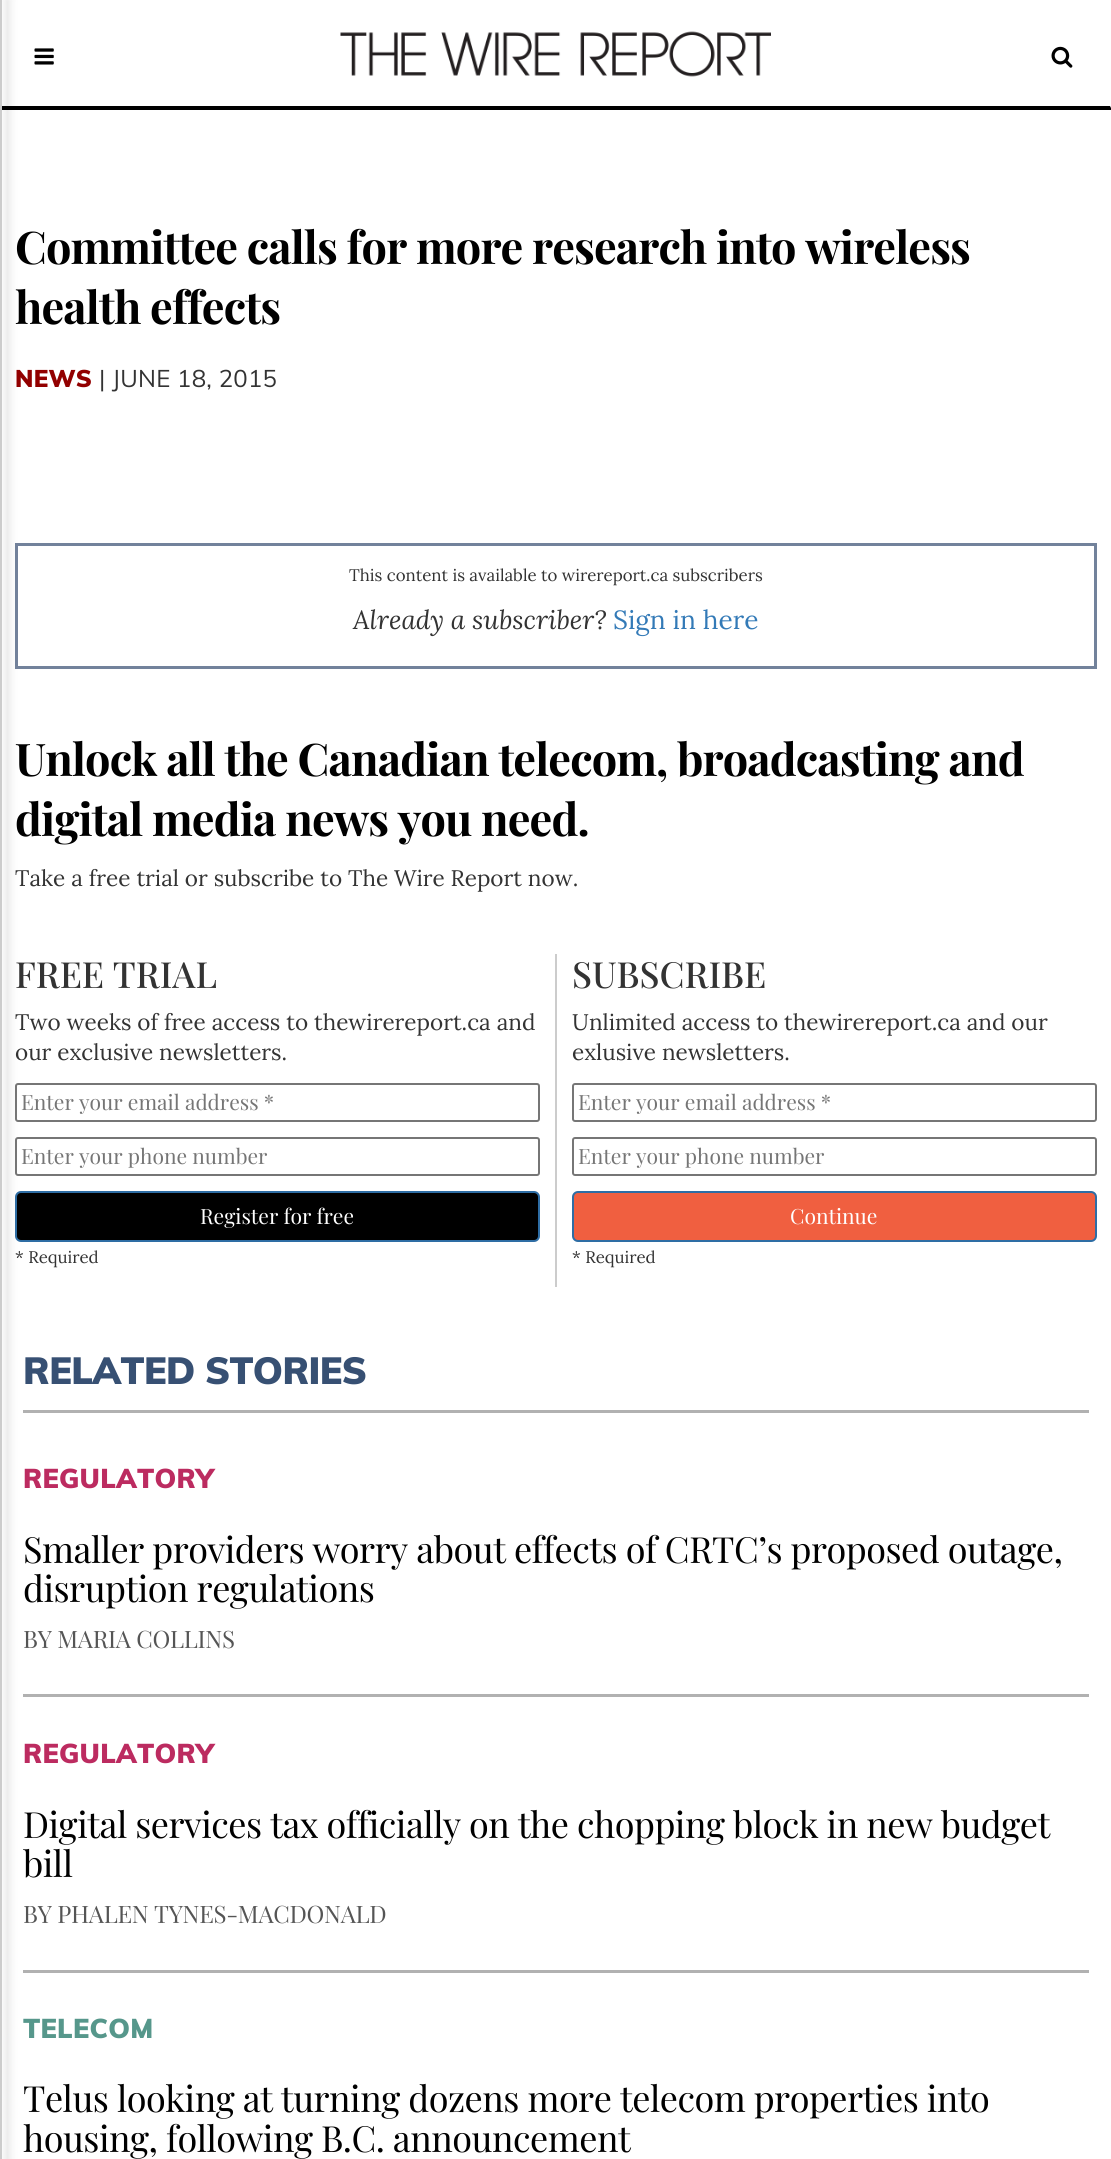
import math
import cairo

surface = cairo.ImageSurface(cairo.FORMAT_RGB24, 1111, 2159)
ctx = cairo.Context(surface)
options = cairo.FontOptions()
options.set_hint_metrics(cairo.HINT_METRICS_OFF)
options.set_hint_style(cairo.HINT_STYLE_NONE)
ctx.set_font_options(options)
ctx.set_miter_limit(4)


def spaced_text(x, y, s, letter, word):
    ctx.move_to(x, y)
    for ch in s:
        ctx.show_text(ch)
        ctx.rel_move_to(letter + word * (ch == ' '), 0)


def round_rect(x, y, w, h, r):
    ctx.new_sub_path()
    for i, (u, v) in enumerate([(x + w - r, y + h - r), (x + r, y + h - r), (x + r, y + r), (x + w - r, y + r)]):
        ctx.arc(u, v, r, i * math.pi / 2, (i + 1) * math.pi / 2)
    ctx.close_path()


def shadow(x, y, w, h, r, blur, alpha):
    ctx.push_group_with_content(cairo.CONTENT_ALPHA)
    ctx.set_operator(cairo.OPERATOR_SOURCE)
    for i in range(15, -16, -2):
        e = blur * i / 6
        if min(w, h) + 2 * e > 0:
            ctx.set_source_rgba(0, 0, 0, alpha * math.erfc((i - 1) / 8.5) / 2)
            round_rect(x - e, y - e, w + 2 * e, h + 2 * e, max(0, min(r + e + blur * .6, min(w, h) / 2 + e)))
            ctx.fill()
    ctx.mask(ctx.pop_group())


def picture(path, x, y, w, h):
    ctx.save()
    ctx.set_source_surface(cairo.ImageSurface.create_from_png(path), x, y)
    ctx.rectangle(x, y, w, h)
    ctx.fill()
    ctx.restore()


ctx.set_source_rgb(1, 1, 1)
ctx.paint()
ctx.set_source_rgb(0, 0, 0)
ctx.new_path()
ctx.move_to(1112, 110)
ctx.line_to(0, 110)
ctx.line_to(2, 106)
ctx.line_to(1110, 106)
ctx.close_path()
ctx.fill()
ctx.rectangle(16.5, 544.5, 1079, 123)
ctx.set_source_rgb(0.447, 0.51, 0.608)
ctx.set_line_width(3)
ctx.stroke()
round_rect(16, 1084, 523, 37, 2)
ctx.set_source_rgb(0.463, 0.463, 0.463)
ctx.set_line_width(2)
ctx.stroke()
round_rect(16, 1138, 523, 37, 2)
ctx.stroke()
ctx.set_source_rgb(0, 0, 0)
round_rect(16, 1192, 523, 49, 5)
ctx.fill_preserve()
ctx.set_source_rgb(0.18, 0.427, 0.643)
ctx.stroke()
ctx.set_source_rgb(0.694, 0.694, 0.694)
ctx.rectangle(23, 1410, 1066, 3)
ctx.fill()
ctx.rectangle(23, 1694, 1066, 3)
ctx.fill()
ctx.rectangle(23, 1970, 1066, 3)
ctx.fill()
ctx.set_source_rgb(0, 0, 0)
shadow(5, -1, 5, 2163, 0, 4.5, 0.1)
ctx.set_source_rgb(0.8, 0.8, 0.8)
ctx.rectangle(0, 0, 2, 2159)
ctx.fill()
picture("img1.png", 34, 48, 20, 17)
picture("img2.png", 340, 31, 431, 46)
picture("img3.png", 1051, 46, 22, 22)
ctx.select_font_face("Playfair Display", cairo.FONT_SLANT_NORMAL, cairo.FONT_WEIGHT_BOLD)
ctx.set_font_size(45)
ctx.set_source_rgb(0, 0, 0)
spaced_text(15, 264, "Committee calls for more research into wireless", -0.85, 0)
spaced_text(15, 324, "health effects", -0.85, 0)
ctx.select_font_face("Muli Black")
ctx.set_font_size(24)
ctx.set_source_rgb(0.573, 0, 0)
spaced_text(15, 387, "NEWS", 0.25, 0)
ctx.select_font_face("Muli")
ctx.set_source_rgb(0.2, 0.2, 0.2)
spaced_text(99, 387, "| JUNE 18, 2015", 0.25, 0)
ctx.select_font_face("Lora")
ctx.set_font_size(16.8)
ctx.move_to(349, 581)
ctx.show_text("This content is available to wirereport.ca subscribers")
ctx.select_font_face("Lora", cairo.FONT_SLANT_ITALIC)
ctx.set_font_size(26.25)
ctx.move_to(353, 629)
ctx.show_text("Already a subscriber?")
ctx.select_font_face("Lora")
ctx.set_source_rgb(0.2, 0.478, 0.718)
ctx.move_to(613, 629)
ctx.show_text("Sign in here")
ctx.select_font_face("Playfair Display", cairo.FONT_SLANT_NORMAL, cairo.FONT_WEIGHT_BOLD)
ctx.set_font_size(45)
ctx.set_source_rgb(0, 0, 0)
spaced_text(15, 776, "Unlock all the Canadian telecom, broadcasting and", -0.85, 0)
spaced_text(15, 836, "digital media news you need.", -0.85, 0)
ctx.select_font_face("Lora")
ctx.set_font_size(22.5)
ctx.set_source_rgb(0.2, 0.2, 0.2)
ctx.move_to(15, 886)
ctx.show_text("Take a free trial or subscribe to The Wire Report now.")
ctx.select_font_face("Playfair Display Medium")
ctx.set_font_size(36)
ctx.move_to(15, 988)
ctx.show_text("FREE TRIAL")
ctx.select_font_face("Lora")
ctx.set_font_size(22.5)
ctx.move_to(15, 1030)
ctx.show_text("Two weeks of free access to thewirereport.ca and")
ctx.move_to(15, 1060)
ctx.show_text("our exclusive newsletters.")
ctx.select_font_face("Playfair Display")
ctx.set_font_size(21)
ctx.set_source_rgb(0.459, 0.459, 0.459)
ctx.move_to(21, 1110)
ctx.show_text("Enter your email address *")
ctx.move_to(21, 1164)
ctx.show_text("Enter your phone number")
ctx.set_source_rgb(1, 1, 1)
ctx.move_to(200, 1224)
ctx.show_text("Register for free")
ctx.select_font_face("Lora")
ctx.set_font_size(16.8)
ctx.set_source_rgb(0.2, 0.2, 0.2)
ctx.move_to(15, 1263)
ctx.show_text("* Required")
ctx.set_source_rgb(0.8, 0.8, 0.8)
ctx.rectangle(555, 954, 2, 333)
ctx.fill()
ctx.select_font_face("Playfair Display Medium")
ctx.set_font_size(36)
ctx.set_source_rgb(0.2, 0.2, 0.2)
ctx.move_to(572, 988)
ctx.show_text("SUBSCRIBE")
ctx.select_font_face("Lora")
ctx.set_font_size(22.5)
ctx.move_to(572, 1030)
ctx.show_text("Unlimited access to thewirereport.ca and our")
ctx.move_to(572, 1060)
ctx.show_text("exlusive newsletters.")
round_rect(573, 1084, 523, 37, 2)
ctx.set_source_rgb(0.463, 0.463, 0.463)
ctx.stroke()
ctx.select_font_face("Playfair Display")
ctx.set_font_size(21)
ctx.set_source_rgb(0.459, 0.459, 0.459)
ctx.move_to(578, 1110)
ctx.show_text("Enter your email address *")
round_rect(573, 1138, 523, 37, 2)
ctx.set_source_rgb(0.463, 0.463, 0.463)
ctx.stroke()
ctx.set_source_rgb(0.459, 0.459, 0.459)
ctx.move_to(578, 1164)
ctx.show_text("Enter your phone number")
ctx.set_source_rgb(0.941, 0.373, 0.251)
round_rect(573, 1192, 523, 49, 5)
ctx.fill_preserve()
ctx.set_source_rgb(0.18, 0.427, 0.643)
ctx.stroke()
ctx.set_source_rgb(1, 1, 1)
ctx.move_to(790, 1224)
ctx.show_text("Continue")
ctx.select_font_face("Lora")
ctx.set_font_size(16.8)
ctx.set_source_rgb(0.2, 0.2, 0.2)
ctx.move_to(572, 1263)
ctx.show_text("* Required")
ctx.select_font_face("Muli Black")
ctx.set_font_size(37.5)
ctx.set_source_rgb(0.216, 0.314, 0.451)
spaced_text(23, 1384, "RELATED STORIES", -0.6, 0)
ctx.set_font_size(27)
ctx.set_source_rgb(0.737, 0.169, 0.376)
spaced_text(23, 1488, "REGULATORY", 0.25, 0)
ctx.select_font_face("Playfair Display")
ctx.set_font_size(36)
ctx.set_source_rgb(0, 0, 0)
spaced_text(23, 1563, "Smaller providers worry about effects of CRTC’s proposed outage,", -0.48, 0)
spaced_text(23, 1602, "disruption regulations", -0.48, 0)
ctx.set_font_size(24)
ctx.set_source_rgb(0.333, 0.333, 0.333)
spaced_text(23, 1648, "BY MARIA COLLINS", -0.3, 0)
ctx.select_font_face("Muli Black")
ctx.set_font_size(27)
ctx.set_source_rgb(0.737, 0.169, 0.376)
spaced_text(23, 1763, "REGULATORY", 0.25, 0)
ctx.select_font_face("Playfair Display")
ctx.set_font_size(36)
ctx.set_source_rgb(0, 0, 0)
spaced_text(23, 1838, "Digital services tax officially on the chopping block in new budget", -0.48, 0)
spaced_text(23, 1877, "bill", -0.48, 0)
ctx.set_font_size(24)
ctx.set_source_rgb(0.333, 0.333, 0.333)
spaced_text(23, 1923, "BY PHALEN TYNES-MACDONALD", -0.3, 0)
ctx.select_font_face("Muli Black")
ctx.set_font_size(27)
ctx.set_source_rgb(0.337, 0.592, 0.545)
spaced_text(23, 2038, "TELECOM", 0.25, 0)
ctx.select_font_face("Playfair Display")
ctx.set_font_size(36)
ctx.set_source_rgb(0, 0, 0)
spaced_text(23, 2112, "Telus looking at turning dozens more telecom properties into", -0.48, 0)
spaced_text(23, 2152, "housing, following B.C. announcement", -0.48, 0)
surface.write_to_png("page.png")
